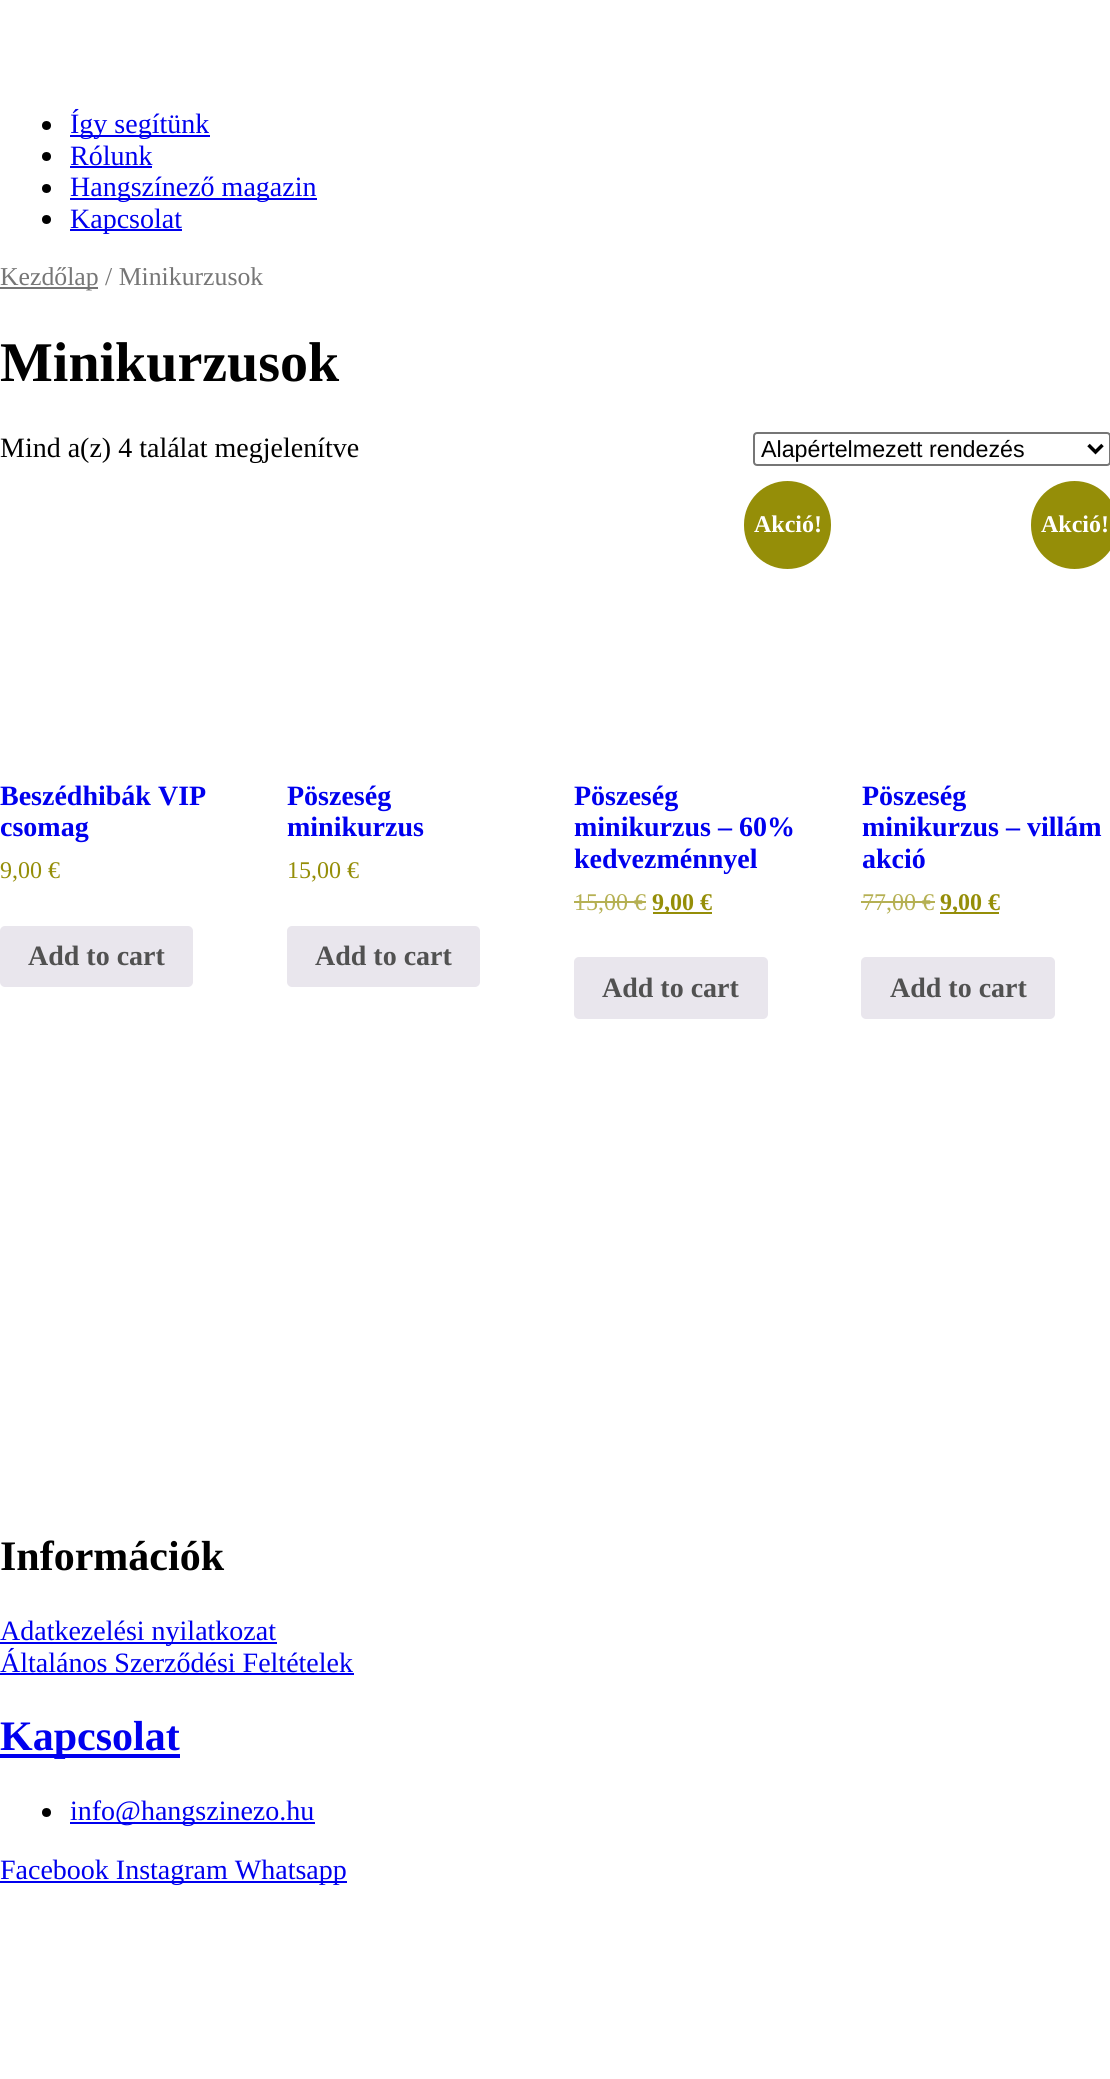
import math
import cairo

surface = cairo.ImageSurface(cairo.FORMAT_RGB24, 1110, 2079)
ctx = cairo.Context(surface)
options = cairo.FontOptions()
options.set_hint_metrics(cairo.HINT_METRICS_OFF)
options.set_hint_style(cairo.HINT_STYLE_NONE)
ctx.set_font_options(options)
ctx.set_miter_limit(4)


def round_rect(x, y, w, h, r):
    ctx.new_sub_path()
    for i, (u, v) in enumerate([(x + w - r, y + h - r), (x + r, y + h - r), (x + r, y + r), (x + w - r, y + r)]):
        ctx.arc(u, v, r, i * math.pi / 2, (i + 1) * math.pi / 2)
    ctx.close_path()


ctx.set_source_rgb(1, 1, 1)
ctx.paint()
ctx.set_source_rgb(0, 0, 0)
ctx.arc(46.5, 125.5, 4.5, 0, 2 * math.pi)
ctx.fill()
ctx.set_source_rgb(0, 0, 0.933)
ctx.rectangle(70, 135, 140, 2)
ctx.fill()
ctx.select_font_face("Liberation Serif")
ctx.set_font_size(28)
ctx.move_to(70, 133)
ctx.show_text("Így segítünk")
ctx.set_source_rgb(0, 0, 0)
ctx.new_path()
ctx.arc(46.5, 156.5, 4.5, 0, 2 * math.pi)
ctx.fill()
ctx.set_source_rgb(0, 0, 0.933)
ctx.move_to(70, 165)
ctx.show_text("Rólunk")
ctx.rectangle(70, 166, 82, 2)
ctx.fill()
ctx.set_source_rgb(0, 0, 0)
ctx.arc(46.5, 188.5, 4.5, 0, 2 * math.pi)
ctx.fill()
ctx.set_source_rgb(0, 0, 0.933)
ctx.rectangle(70, 198, 247, 2)
ctx.fill()
ctx.move_to(70, 196)
ctx.show_text("Hangszínező magazin")
ctx.set_source_rgb(0, 0, 0)
ctx.new_path()
ctx.arc(46.5, 219.5, 4.5, 0, 2 * math.pi)
ctx.fill()
ctx.set_source_rgb(0, 0, 0.933)
ctx.rectangle(70, 229, 112, 2)
ctx.fill()
ctx.move_to(70, 228)
ctx.show_text("Kapcsolat")
ctx.set_source_rgb(0.463, 0.463, 0.463)
ctx.rectangle(0, 287, 98, 2)
ctx.fill()
ctx.set_font_size(25.75)
ctx.move_to(0, 285)
ctx.show_text("Kezdőlap / Minikurzusok")
ctx.select_font_face("Liberation Serif", cairo.FONT_SLANT_NORMAL, cairo.FONT_WEIGHT_BOLD)
ctx.set_font_size(56)
ctx.set_source_rgb(0, 0, 0)
ctx.move_to(0, 381)
ctx.show_text("Minikurzusok")
ctx.select_font_face("Liberation Serif")
ctx.set_font_size(28)
ctx.move_to(0, 457)
ctx.show_text("Mind a(z) 4 találat megjelenítve")
round_rect(754, 433, 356, 32, 3)
ctx.set_source_rgb(0.463, 0.463, 0.463)
ctx.stroke()
ctx.new_path()
ctx.move_to(1088.5, 445)
ctx.line_to(1095.5, 452)
ctx.line_to(1102.5, 445)
ctx.set_source_rgb(0, 0, 0)
ctx.set_line_width(3.5)
ctx.stroke()
ctx.select_font_face("Liberation Sans")
ctx.set_font_size(23.25)
ctx.move_to(761, 457)
ctx.show_text("Alapértelmezett rendezés")
ctx.select_font_face("Liberation Serif", cairo.FONT_SLANT_NORMAL, cairo.FONT_WEIGHT_BOLD)
ctx.set_font_size(28)
ctx.set_source_rgb(0, 0, 0.933)
ctx.move_to(0, 805)
ctx.show_text("Beszédhibák VIP")
ctx.move_to(0, 836)
ctx.show_text("csomag")
ctx.select_font_face("Liberation Serif")
ctx.set_font_size(24)
ctx.set_source_rgb(0.584, 0.557, 0.035)
ctx.move_to(0, 878)
ctx.show_text("9,00 €")
ctx.set_source_rgb(0.914, 0.902, 0.929)
round_rect(0, 926, 193, 61, 5)
ctx.fill()
ctx.select_font_face("Liberation Serif", cairo.FONT_SLANT_NORMAL, cairo.FONT_WEIGHT_BOLD)
ctx.set_font_size(28)
ctx.set_source_rgb(0.318, 0.318, 0.318)
ctx.move_to(28, 965)
ctx.show_text("Add to cart")
ctx.set_source_rgb(0, 0, 0.933)
ctx.move_to(287, 805)
ctx.show_text("Pöszeség")
ctx.move_to(287, 836)
ctx.show_text("minikurzus")
ctx.select_font_face("Liberation Serif")
ctx.set_font_size(24)
ctx.set_source_rgb(0.584, 0.557, 0.035)
ctx.move_to(287, 878)
ctx.show_text("15,00 €")
ctx.set_source_rgb(0.914, 0.902, 0.929)
round_rect(287, 926, 193, 61, 5)
ctx.fill()
ctx.select_font_face("Liberation Serif", cairo.FONT_SLANT_NORMAL, cairo.FONT_WEIGHT_BOLD)
ctx.set_font_size(28)
ctx.set_source_rgb(0.318, 0.318, 0.318)
ctx.move_to(315, 965)
ctx.show_text("Add to cart")
ctx.set_source_rgb(0.584, 0.557, 0.035)
round_rect(744, 481, 87, 88, 43.5)
ctx.fill()
ctx.set_font_size(24)
ctx.set_source_rgb(1, 1, 1)
ctx.move_to(754, 532)
ctx.show_text("Akció!")
ctx.set_font_size(28)
ctx.set_source_rgb(0, 0, 0.933)
ctx.move_to(574, 805)
ctx.show_text("Pöszeség")
ctx.move_to(574, 836)
ctx.show_text("minikurzus – 60%")
ctx.move_to(574, 868)
ctx.show_text("kedvezménnyel")
ctx.select_font_face("Liberation Serif")
ctx.set_font_size(24)
ctx.set_source_rgb(0.71, 0.69, 0.325)
ctx.move_to(574, 910)
ctx.show_text("15,00")
ctx.rectangle(574, 901, 61, 2)
ctx.fill()
ctx.move_to(634, 910)
ctx.show_text("€")
ctx.rectangle(635, 901, 11, 2)
ctx.fill()
ctx.set_source_rgb(0.584, 0.557, 0.035)
ctx.rectangle(653, 912, 59, 2)
ctx.fill()
ctx.select_font_face("Liberation Serif", cairo.FONT_SLANT_NORMAL, cairo.FONT_WEIGHT_BOLD)
ctx.move_to(652, 910)
ctx.show_text("9,00 €")
ctx.set_source_rgb(0.914, 0.902, 0.929)
round_rect(574, 957, 194, 62, 5)
ctx.fill()
ctx.set_font_size(28)
ctx.set_source_rgb(0.318, 0.318, 0.318)
ctx.move_to(602, 997)
ctx.show_text("Add to cart")
ctx.set_source_rgb(0.584, 0.557, 0.035)
round_rect(1031, 481, 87, 88, 43.5)
ctx.fill()
ctx.set_font_size(24)
ctx.set_source_rgb(1, 1, 1)
ctx.move_to(1041, 532)
ctx.show_text("Akció!")
ctx.set_font_size(28)
ctx.set_source_rgb(0, 0, 0.933)
ctx.move_to(862, 805)
ctx.show_text("Pöszeség")
ctx.move_to(862, 836)
ctx.show_text("minikurzus – villám")
ctx.move_to(862, 868)
ctx.show_text("akció")
ctx.select_font_face("Liberation Serif")
ctx.set_font_size(24)
ctx.set_source_rgb(0.71, 0.69, 0.325)
ctx.move_to(862, 910)
ctx.show_text("77,00 €")
ctx.rectangle(861, 901, 74, 2)
ctx.fill()
ctx.set_source_rgb(0.584, 0.557, 0.035)
ctx.rectangle(940, 912, 59, 2)
ctx.fill()
ctx.select_font_face("Liberation Serif", cairo.FONT_SLANT_NORMAL, cairo.FONT_WEIGHT_BOLD)
ctx.move_to(940, 910)
ctx.show_text("9,00 €")
ctx.set_source_rgb(0.914, 0.902, 0.929)
round_rect(861, 957, 194, 62, 5)
ctx.fill()
ctx.set_font_size(28)
ctx.set_source_rgb(0.318, 0.318, 0.318)
ctx.move_to(890, 997)
ctx.show_text("Add to cart")
ctx.set_font_size(42)
ctx.set_source_rgb(0, 0, 0)
ctx.move_to(0, 1570)
ctx.show_text("Információk")
ctx.set_source_rgb(0, 0, 0.933)
ctx.rectangle(0, 1642, 277, 2)
ctx.fill()
ctx.select_font_face("Liberation Serif")
ctx.set_font_size(28)
ctx.move_to(0, 1640)
ctx.show_text("Adatkezelési nyilatkozat")
ctx.move_to(0, 1672)
ctx.show_text("Általános Szerződési Feltételek")
ctx.rectangle(0, 1673, 354, 2)
ctx.fill()
ctx.rectangle(0, 1754, 180, 4)
ctx.fill()
ctx.select_font_face("Liberation Serif", cairo.FONT_SLANT_NORMAL, cairo.FONT_WEIGHT_BOLD)
ctx.set_font_size(42)
ctx.move_to(0, 1750)
ctx.show_text("Kapcsolat")
ctx.set_source_rgb(0, 0, 0)
ctx.new_path()
ctx.arc(46.5, 1812.5, 4.5, 0, 2 * math.pi)
ctx.fill()
ctx.set_source_rgb(0, 0, 0.933)
ctx.rectangle(70, 1822, 245, 2)
ctx.fill()
ctx.select_font_face("Liberation Serif")
ctx.set_font_size(28)
ctx.move_to(70, 1820)
ctx.show_text("info@hangszinezo.hu")
ctx.rectangle(0, 1881, 347, 2)
ctx.fill()
ctx.move_to(0, 1879)
ctx.show_text("Facebook Instagram Whatsapp")
surface.write_to_png("page.png")
